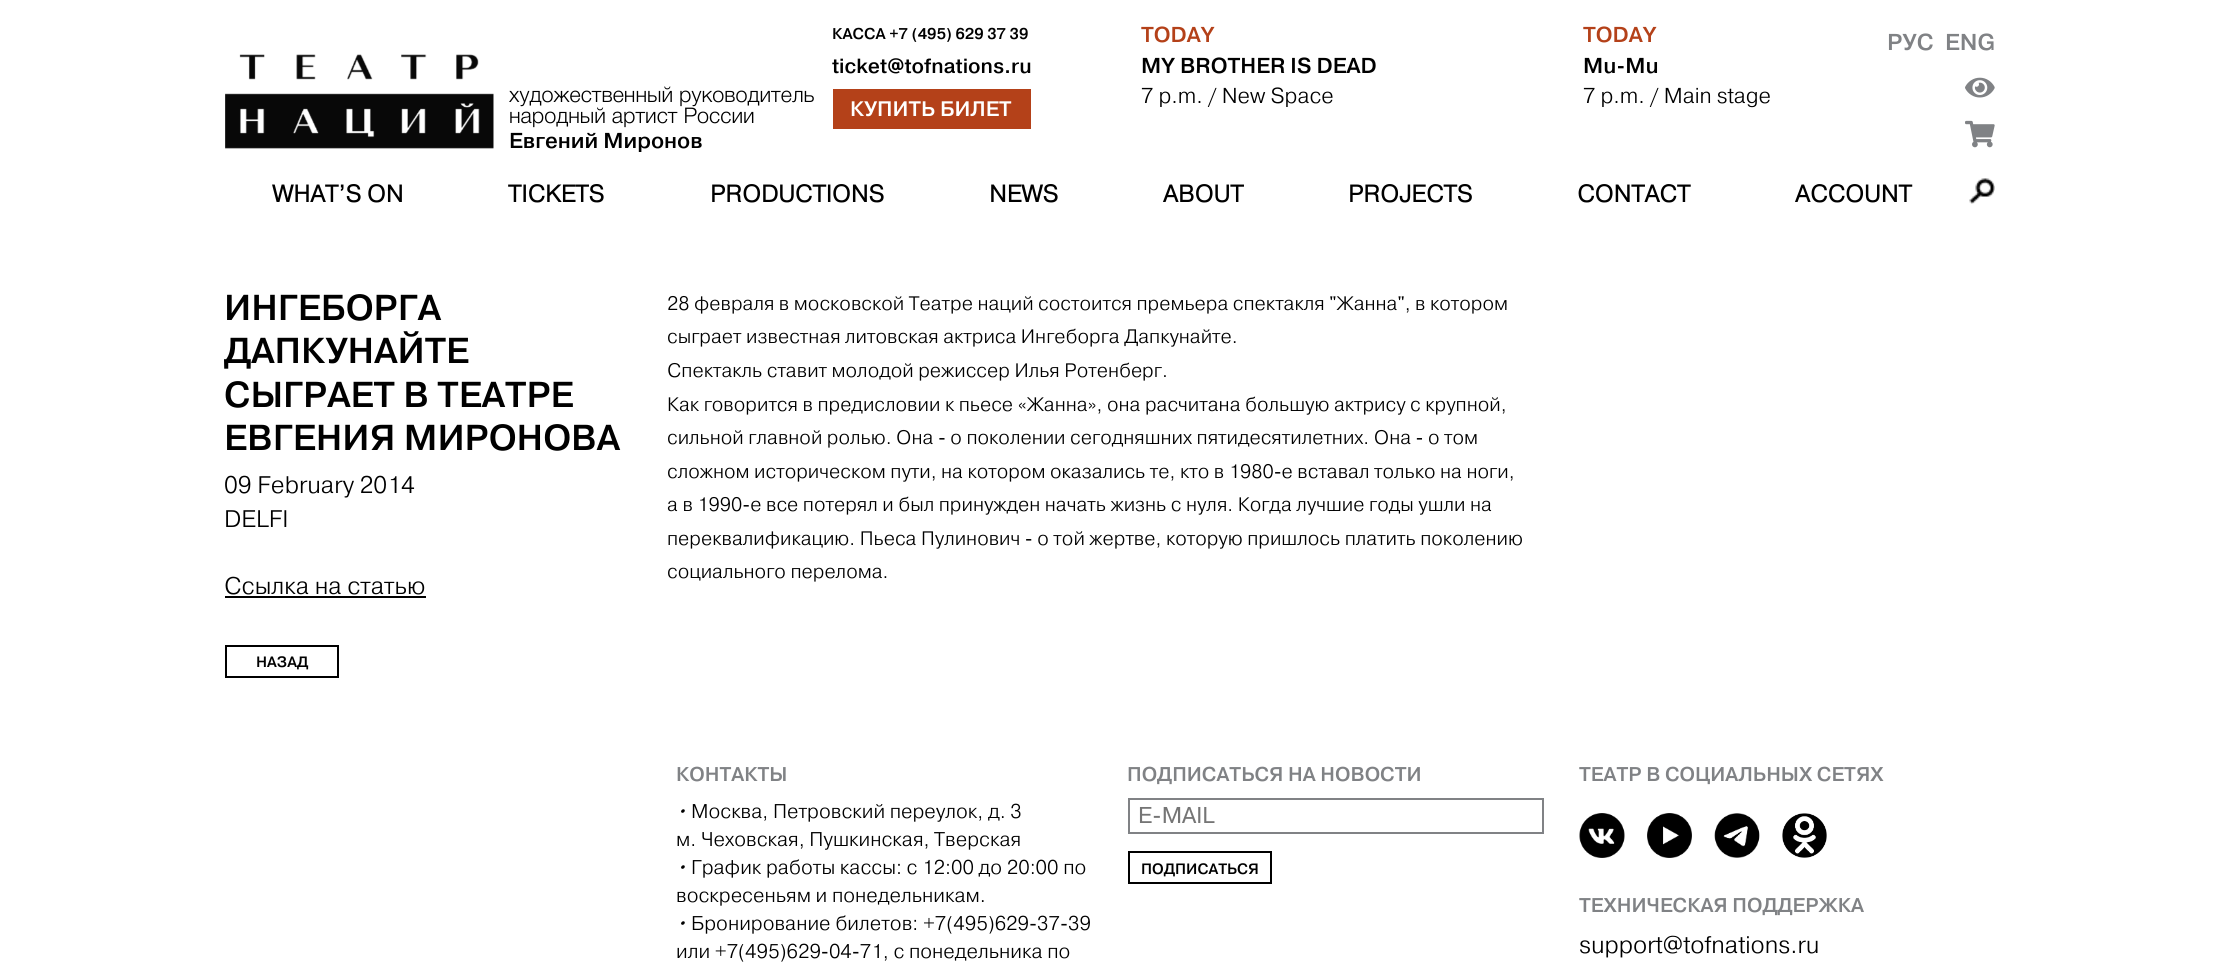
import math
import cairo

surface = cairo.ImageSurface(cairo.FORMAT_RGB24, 2218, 969)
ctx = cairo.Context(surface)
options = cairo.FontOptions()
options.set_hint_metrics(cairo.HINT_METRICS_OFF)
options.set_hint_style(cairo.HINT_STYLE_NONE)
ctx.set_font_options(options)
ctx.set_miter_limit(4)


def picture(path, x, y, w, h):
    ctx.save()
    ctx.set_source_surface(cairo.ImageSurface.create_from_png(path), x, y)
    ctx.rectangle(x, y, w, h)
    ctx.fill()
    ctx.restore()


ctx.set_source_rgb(1, 1, 1)
ctx.paint()
ctx.select_font_face("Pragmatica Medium")
ctx.set_font_size(15.6)
ctx.set_source_rgb(0, 0, 0)
ctx.move_to(832, 39)
ctx.show_text("КАССА +7 (495) 629 37 39")
ctx.set_font_size(20.5)
ctx.move_to(832, 73)
ctx.show_text("ticket@tofnations.ru")
ctx.set_source_rgb(0.706, 0.255, 0.098)
ctx.rectangle(833, 89, 198, 40)
ctx.fill()
ctx.set_font_size(21)
ctx.set_source_rgb(1, 1, 1)
ctx.move_to(850, 116)
ctx.show_text("КУПИТЬ БИЛЕТ")
ctx.set_font_size(21.6)
ctx.set_source_rgb(0.706, 0.255, 0.098)
ctx.move_to(1141, 42)
ctx.show_text("TODAY")
ctx.set_source_rgb(0, 0, 0)
ctx.move_to(1141, 73)
ctx.show_text("MY BROTHER IS DEAD")
ctx.select_font_face("Pragmatica Light")
ctx.move_to(1141, 103)
ctx.show_text("7 p.m. / New Space")
ctx.select_font_face("Pragmatica Medium")
ctx.set_source_rgb(0.706, 0.255, 0.098)
ctx.move_to(1583, 42)
ctx.show_text("TODAY")
ctx.set_source_rgb(0, 0, 0)
ctx.move_to(1583, 73)
ctx.show_text("Mu-Mu")
ctx.select_font_face("Pragmatica Light")
ctx.move_to(1583, 103)
ctx.show_text("7 p.m. / Main stage")
ctx.select_font_face("Pragmatica Medium")
ctx.set_font_size(23)
ctx.set_source_rgb(0.502, 0.51, 0.522)
ctx.move_to(1887, 50)
ctx.show_text("РУС")
ctx.move_to(1945, 50)
ctx.show_text("ENG")
picture("img1.png", 1965, 77, 30, 21)
picture("img2.png", 1965, 120, 30, 28)
picture("img3.png", 225, 54, 269, 95)
ctx.select_font_face("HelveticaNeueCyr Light")
ctx.set_font_size(21.6)
ctx.set_source_rgb(0, 0, 0)
ctx.move_to(509, 102)
ctx.show_text("художественный руководитель")
ctx.move_to(509, 123)
ctx.show_text("народный артист России")
ctx.select_font_face("Pragmatica Medium")
ctx.move_to(509, 148)
ctx.show_text("Евгений Миронов")
ctx.select_font_face("Pragmatica", cairo.FONT_SLANT_NORMAL, cairo.FONT_WEIGHT_BOLD)
ctx.set_font_size(24)
ctx.move_to(272, 202)
ctx.show_text("WHAT’S ON")
ctx.move_to(508, 202)
ctx.show_text("TICKETS")
ctx.move_to(710, 202)
ctx.show_text("PRODUCTIONS")
ctx.move_to(989, 202)
ctx.show_text("NEWS")
ctx.move_to(1163, 202)
ctx.show_text("ABOUT")
ctx.move_to(1348, 202)
ctx.show_text("PROJECTS")
ctx.move_to(1577, 202)
ctx.show_text("CONTACT")
ctx.move_to(1795, 202)
ctx.show_text("ACCOUNT")
picture("img4.png", 1969, 178, 26, 26)
ctx.select_font_face("Pragmatica Medium")
ctx.set_font_size(36)
ctx.move_to(224, 320)
ctx.show_text("ИНГЕБОРГА")
ctx.move_to(224, 363)
ctx.show_text("ДАПКУНАЙТЕ")
ctx.move_to(224, 407)
ctx.show_text("СЫГРАЕТ В ТЕАТРЕ")
ctx.move_to(224, 450)
ctx.show_text("ЕВГЕНИЯ МИРОНОВА")
ctx.select_font_face("Pragmatica Light")
ctx.set_font_size(24)
ctx.move_to(224, 493)
ctx.show_text("09 February 2014")
ctx.move_to(224, 527)
ctx.show_text("DELFI")
ctx.move_to(224, 594)
ctx.show_text("Ссылка на статью")
ctx.rectangle(225, 596, 201, 2)
ctx.fill()
ctx.rectangle(226, 646, 112, 31)
ctx.stroke()
ctx.select_font_face("Pragmatica Medium")
ctx.set_font_size(15)
ctx.move_to(256, 667)
ctx.show_text("НАЗАД")
ctx.select_font_face("Pragmatica Light")
ctx.set_font_size(19.5)
ctx.move_to(667, 310)
ctx.show_text("28 февраля в московской Театре наций состоится премьера спектакля \"Жанна\", в котором")
ctx.move_to(667, 343)
ctx.show_text("сыграет известная литовская актриса Ингеборга Дапкунайте.")
ctx.move_to(667, 377)
ctx.show_text("Спектакль ставит молодой режиссер Илья Ротенберг.")
ctx.move_to(667, 411)
ctx.show_text("Как говорится в предисловии к пьесе «Жанна», она расчитана большую актрису с крупной,")
ctx.move_to(667, 444)
ctx.show_text("сильной главной ролью. Она - о поколении сегодняшних пятидесятилетних. Она - о том")
ctx.move_to(667, 478)
ctx.show_text("сложном историческом пути, на котором оказались те, кто в 1980-е вставал только на ноги,")
ctx.move_to(667, 511)
ctx.show_text("а в 1990-е все потерял и был принужден начать жизнь с нуля. Когда лучшие годы ушли на")
ctx.move_to(667, 545)
ctx.show_text("переквалификацию. Пьеса Пулинович - о той жертве, которую пришлось платить поколению")
ctx.move_to(667, 578)
ctx.show_text("социального перелома.")
ctx.select_font_face("Pragmatica Medium")
ctx.set_font_size(19.9)
ctx.set_source_rgb(0.502, 0.51, 0.522)
ctx.move_to(676, 781)
ctx.show_text("КОНТАКТЫ")
ctx.select_font_face("Pragmatica Light", cairo.FONT_SLANT_ITALIC)
ctx.set_source_rgb(0, 0, 0)
ctx.move_to(676, 818)
ctx.show_text("•")
ctx.select_font_face("Pragmatica Light")
ctx.move_to(691, 818)
ctx.show_text("Москва, Петровский переулок, д. 3")
ctx.move_to(676, 846)
ctx.show_text("м. Чеховская, Пушкинская, Тверская")
ctx.select_font_face("Pragmatica Light", cairo.FONT_SLANT_ITALIC)
ctx.move_to(676, 874)
ctx.show_text("•")
ctx.select_font_face("Pragmatica Light")
ctx.move_to(691, 874)
ctx.show_text("График работы кассы: с 12:00 до 20:00 по")
ctx.move_to(676, 902)
ctx.show_text("воскресеньям и понедельникам.")
ctx.select_font_face("Pragmatica Light", cairo.FONT_SLANT_ITALIC)
ctx.move_to(676, 930)
ctx.show_text("•")
ctx.select_font_face("Pragmatica Light")
ctx.move_to(691, 930)
ctx.show_text("Бронирование билетов: +7(495)629-37-39")
ctx.move_to(676, 958)
ctx.show_text("или +7(495)629-04-71, с понедельника по")
ctx.select_font_face("Pragmatica Medium")
ctx.set_source_rgb(0.502, 0.51, 0.522)
ctx.move_to(1127, 781)
ctx.show_text("ПОДПИСАТЬСЯ НА НОВОСТИ")
ctx.rectangle(1129, 799, 414, 34)
ctx.stroke()
ctx.select_font_face("Pragmatica")
ctx.set_font_size(21.6)
ctx.set_source_rgb(0.459, 0.459, 0.459)
ctx.move_to(1138, 823)
ctx.show_text("E-MAIL")
ctx.rectangle(1129, 852, 142, 31)
ctx.set_source_rgb(0, 0, 0)
ctx.stroke()
ctx.select_font_face("Pragmatica Medium")
ctx.set_font_size(15)
ctx.move_to(1141, 874)
ctx.show_text("ПОДПИСАТЬСЯ")
ctx.set_font_size(19.9)
ctx.set_source_rgb(0.502, 0.51, 0.522)
ctx.move_to(1579, 781)
ctx.show_text("ТЕАТР В СОЦИАЛЬНЫХ СЕТЯХ")
picture("img5.png", 1579, 813, 46, 45)
picture("img6.png", 1647, 813, 45, 45)
picture("img7.png", 1714, 813, 46, 45)
picture("img8.png", 1782, 813, 45, 45)
ctx.move_to(1579, 912)
ctx.show_text("ТЕХНИЧЕСКАЯ ПОДДЕРЖКА")
ctx.select_font_face("Pragmatica Light")
ctx.set_font_size(24)
ctx.set_source_rgb(0, 0, 0)
ctx.move_to(1579, 953)
ctx.show_text("support@tofnations.ru")
surface.write_to_png("page.png")
